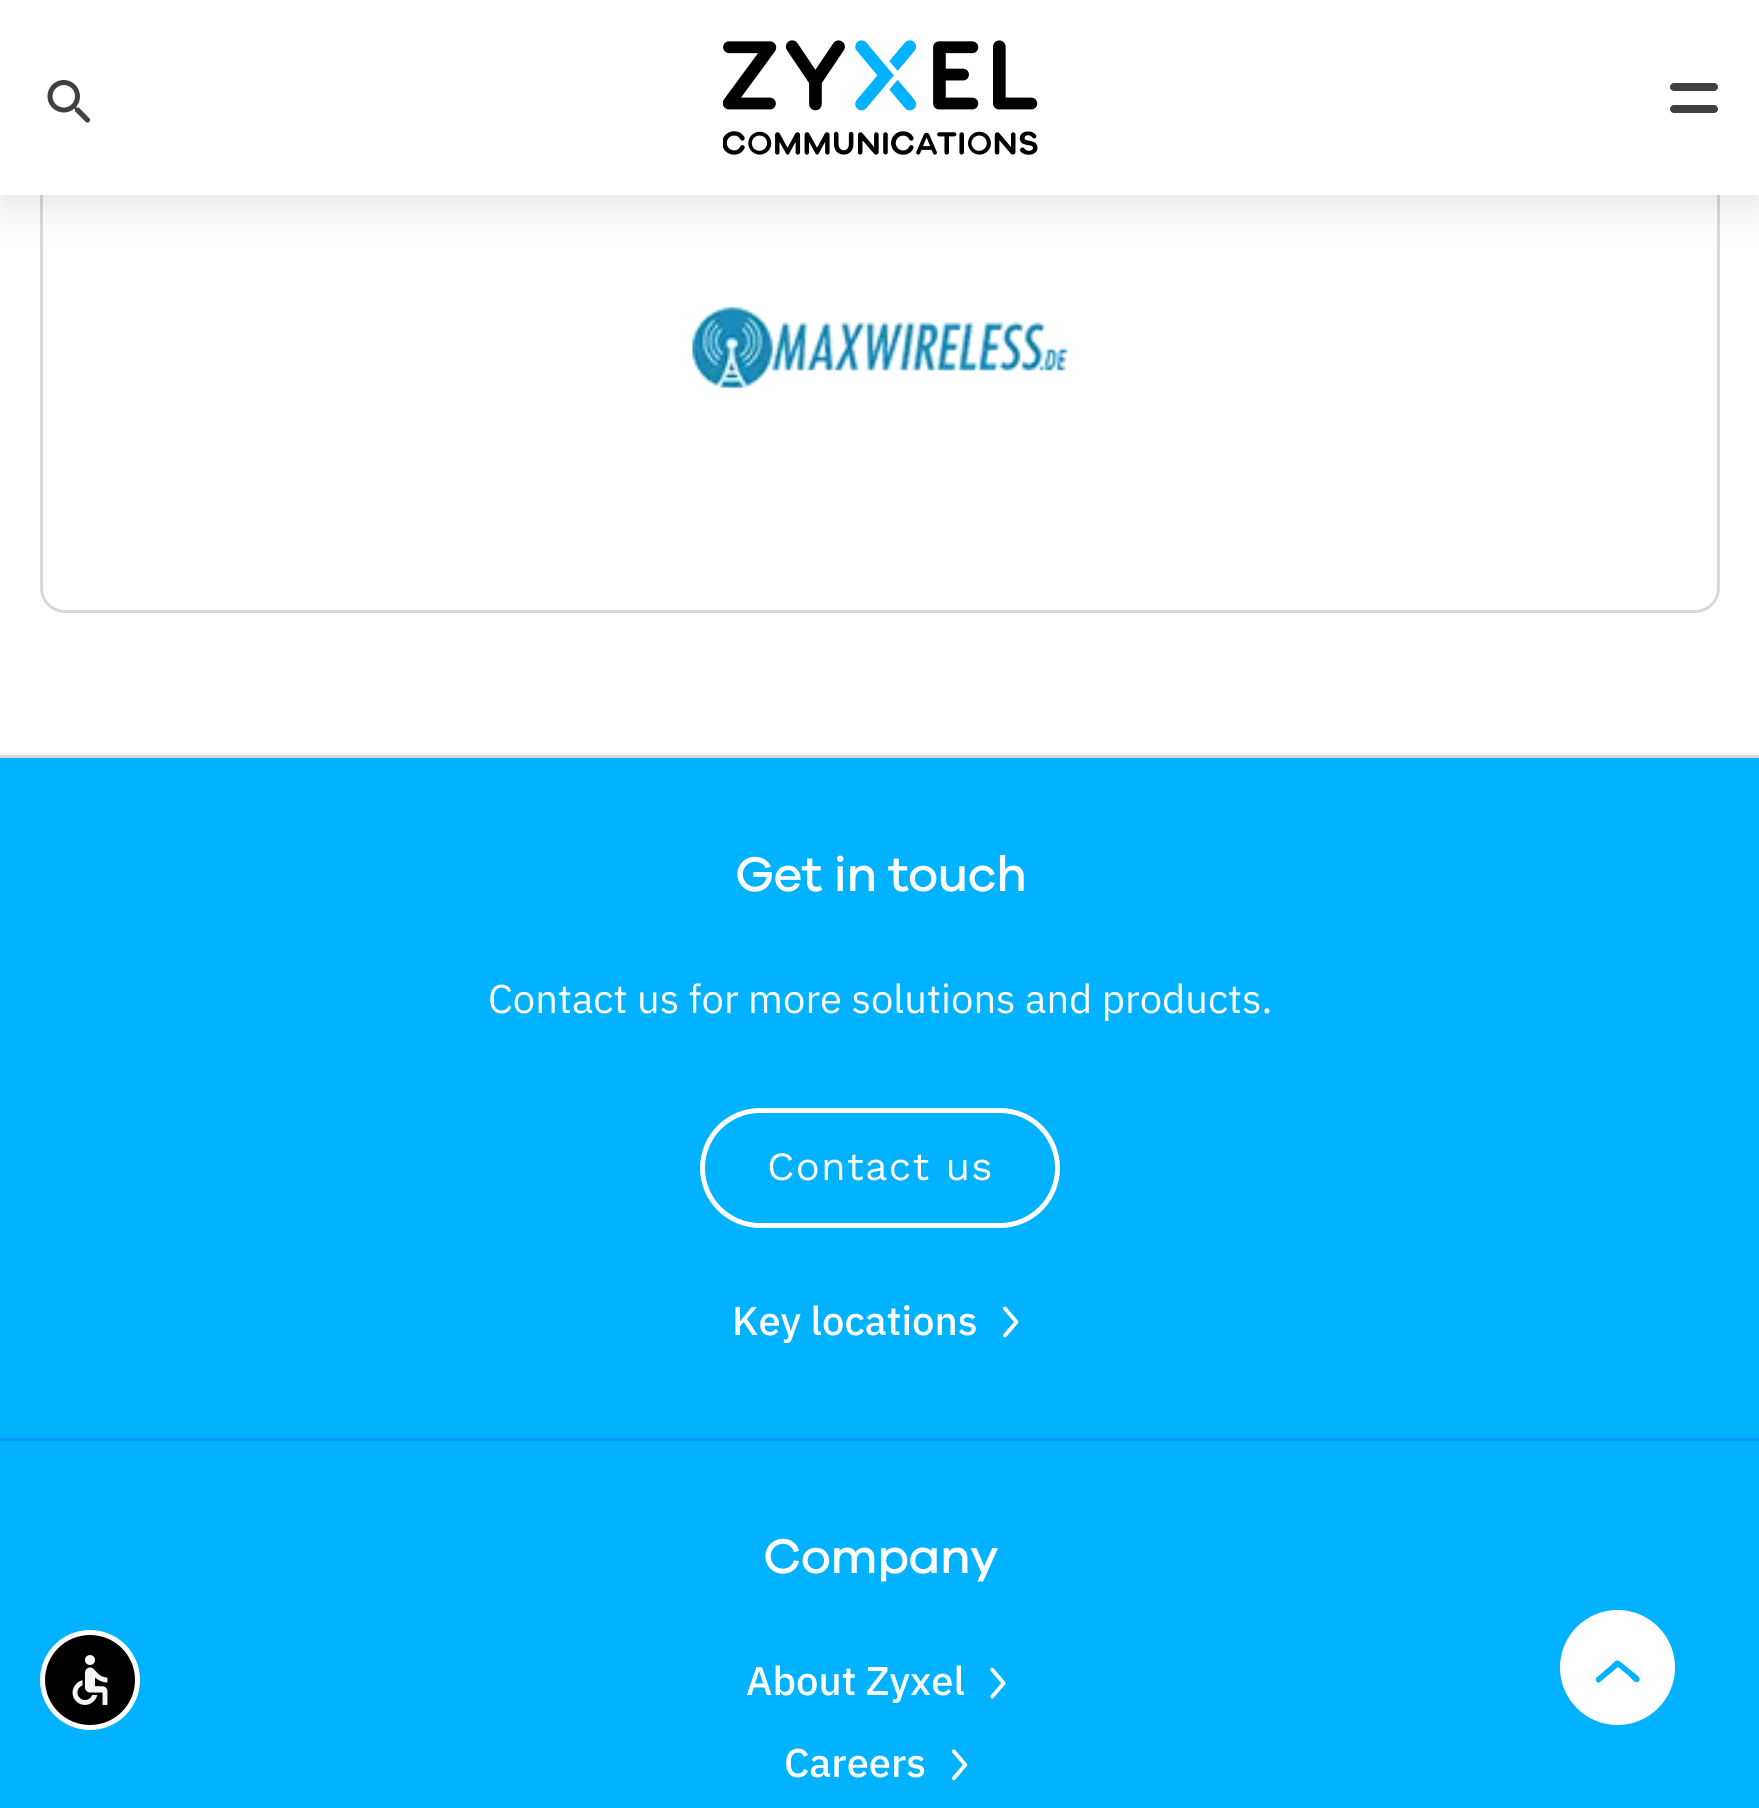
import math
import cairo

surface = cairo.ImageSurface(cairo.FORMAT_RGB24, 1759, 1808)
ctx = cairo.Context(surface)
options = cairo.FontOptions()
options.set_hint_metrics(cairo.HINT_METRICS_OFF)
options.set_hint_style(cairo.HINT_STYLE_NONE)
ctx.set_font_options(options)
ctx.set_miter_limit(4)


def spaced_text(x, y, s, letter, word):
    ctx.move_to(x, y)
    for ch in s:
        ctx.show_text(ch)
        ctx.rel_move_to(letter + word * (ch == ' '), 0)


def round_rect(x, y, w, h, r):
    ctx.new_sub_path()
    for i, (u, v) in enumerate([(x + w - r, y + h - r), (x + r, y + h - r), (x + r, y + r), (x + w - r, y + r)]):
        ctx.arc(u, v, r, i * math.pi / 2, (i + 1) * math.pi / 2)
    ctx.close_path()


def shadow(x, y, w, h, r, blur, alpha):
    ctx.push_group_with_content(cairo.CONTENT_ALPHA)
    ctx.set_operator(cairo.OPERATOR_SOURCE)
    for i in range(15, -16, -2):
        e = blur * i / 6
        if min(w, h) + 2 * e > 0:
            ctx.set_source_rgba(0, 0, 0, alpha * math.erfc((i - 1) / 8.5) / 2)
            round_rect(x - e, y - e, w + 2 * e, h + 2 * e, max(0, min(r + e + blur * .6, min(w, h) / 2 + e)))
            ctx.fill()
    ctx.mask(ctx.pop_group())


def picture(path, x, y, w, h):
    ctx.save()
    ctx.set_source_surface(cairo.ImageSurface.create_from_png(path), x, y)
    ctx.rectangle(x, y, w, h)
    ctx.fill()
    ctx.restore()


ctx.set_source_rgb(1, 1, 1)
ctx.paint()
ctx.set_source_rgb(0, 0.698, 1)
ctx.rectangle(0, 758, 1759, 1050)
ctx.fill()
ctx.set_source_rgb(0, 0, 0)
ctx.arc(90, 1680, 47.5, 0, 2 * math.pi)
ctx.fill_preserve()
ctx.set_source_rgb(1, 1, 1)
ctx.set_line_width(5)
ctx.stroke()
picture("img1.png", 72, 1655, 36, 50)
round_rect(41.5, 84.5, 1677, 527, 23.5)
ctx.set_source_rgb(0.851, 0.851, 0.851)
ctx.set_line_width(3)
ctx.stroke()
ctx.set_source_rgb(0, 0, 0)
shadow(0, 13, 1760, 195, 0, 19, 0.1)
ctx.set_source_rgb(1, 1, 1)
ctx.rectangle(0, 0, 1759, 195)
ctx.fill()
picture("img2.png", 47, 80, 44, 43)
picture("img3.png", 723, 40, 315, 115)
ctx.set_source_rgb(0.251, 0.251, 0.251)
round_rect(1670, 83, 48, 8, 4)
ctx.fill()
round_rect(1670, 105, 48, 8, 4)
ctx.fill()
ctx.set_source_rgb(0.851, 0.851, 0.851)
ctx.rectangle(0, 755, 1759, 3)
ctx.fill()
picture("img4.png", 692, 306, 376, 83)
ctx.set_source_rgb(0, 0.604, 1)
ctx.rectangle(0, 1438, 1759, 3)
ctx.fill()
ctx.select_font_face("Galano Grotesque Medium")
ctx.set_font_size(50)
ctx.set_source_rgb(1, 1, 1)
spaced_text(735, 891, "Get in touch", -0.75, 0)
ctx.select_font_face("IBM Plex Sans")
ctx.set_font_size(40)
ctx.move_to(488, 1013)
ctx.show_text("Contact us for more solutions and products.")
round_rect(702.5, 1110.5, 355, 115, 57.5)
ctx.set_line_width(5)
ctx.stroke()
ctx.select_font_face("Work Sans")
spaced_text(767, 1180, "Contact us", 1.25, 0)
ctx.select_font_face("IBM Plex Sans Medium")
ctx.move_to(732, 1335)
ctx.show_text("Key locations")
picture("img5.png", 1003, 1306, 16, 32)
ctx.select_font_face("Galano Grotesque Medium")
ctx.set_font_size(50)
spaced_text(763, 1573, "Company", -0.75, 0)
ctx.select_font_face("IBM Plex Sans Medium")
ctx.set_font_size(40)
ctx.move_to(746, 1695)
ctx.show_text("About Zyxel")
picture("img6.png", 990, 1667, 16, 32)
ctx.move_to(784, 1777)
ctx.show_text("Careers")
picture("img7.png", 951, 1749, 17, 32)
ctx.arc(1617.5, 1667.5, 60, 0, 2 * math.pi)
ctx.fill_preserve()
ctx.set_source_rgb(0, 0.698, 1)
ctx.stroke()
ctx.new_path()
ctx.move_to(1639, 1681)
ctx.curve_to(1636, 1685, 1631, 1678, 1630, 1677)
ctx.line_to(1618, 1667)
ctx.line_to(1600, 1682)
ctx.curve_to(1598, 1684, 1595, 1681, 1596, 1678)
ctx.line_to(1610, 1666)
ctx.curve_to(1617, 1660, 1616, 1658, 1623, 1664)
ctx.line_to(1633, 1672)
ctx.curve_to(1634, 1673, 1642, 1678, 1639, 1681)
ctx.close_path()
ctx.fill()
surface.write_to_png("page.png")
